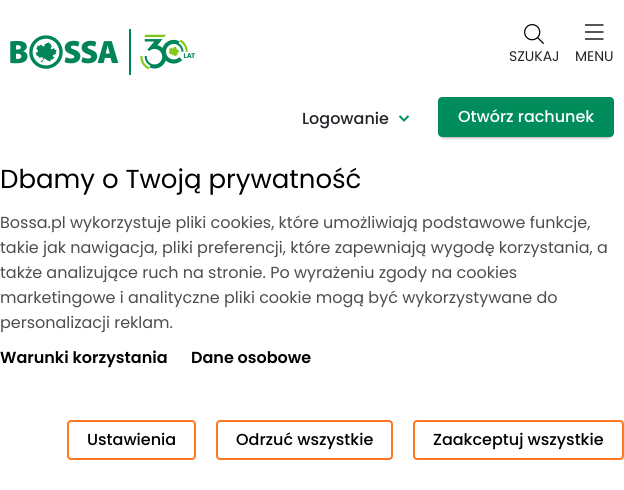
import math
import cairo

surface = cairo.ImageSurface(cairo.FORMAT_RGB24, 624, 490)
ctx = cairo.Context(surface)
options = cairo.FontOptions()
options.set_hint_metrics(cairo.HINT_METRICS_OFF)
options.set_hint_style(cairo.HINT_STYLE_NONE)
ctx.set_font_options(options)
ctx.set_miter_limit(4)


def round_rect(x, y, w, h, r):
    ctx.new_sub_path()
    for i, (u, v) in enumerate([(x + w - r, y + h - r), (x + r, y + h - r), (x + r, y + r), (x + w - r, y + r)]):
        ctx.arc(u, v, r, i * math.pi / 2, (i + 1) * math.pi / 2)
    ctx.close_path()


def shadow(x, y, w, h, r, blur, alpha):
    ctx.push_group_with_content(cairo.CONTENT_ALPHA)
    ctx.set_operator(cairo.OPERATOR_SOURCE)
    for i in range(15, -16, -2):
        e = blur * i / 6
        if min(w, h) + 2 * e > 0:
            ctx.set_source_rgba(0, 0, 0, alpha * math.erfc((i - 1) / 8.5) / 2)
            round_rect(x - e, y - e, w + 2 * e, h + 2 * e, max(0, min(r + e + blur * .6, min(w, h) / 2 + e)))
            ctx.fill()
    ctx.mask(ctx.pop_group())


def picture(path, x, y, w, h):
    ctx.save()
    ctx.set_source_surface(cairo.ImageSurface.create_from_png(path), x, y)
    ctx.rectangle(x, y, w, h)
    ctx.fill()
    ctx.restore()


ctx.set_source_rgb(1, 1, 1)
ctx.paint()
picture("img1.png", 10, 29, 185, 46)
picture("img2.png", 524, 24, 20, 20)
ctx.select_font_face("Poppins")
ctx.set_font_size(14)
ctx.set_source_rgb(0.129, 0.145, 0.161)
ctx.move_to(509, 61)
ctx.show_text("SZUKAJ")
ctx.new_path()
ctx.move_to(585.5, 39)
ctx.line_to(603, 39)
ctx.move_to(585.5, 32)
ctx.line_to(603, 32)
ctx.move_to(585.5, 25)
ctx.line_to(603, 25)
ctx.set_source_rgb(0, 0, 0)
ctx.set_line_width(1.3)
ctx.set_line_cap(cairo.LINE_CAP_ROUND)
ctx.set_line_join(cairo.LINE_JOIN_ROUND)
ctx.stroke()
ctx.set_source_rgb(0.129, 0.145, 0.161)
ctx.move_to(575, 61)
ctx.show_text("MENU")
ctx.select_font_face("Poppins Medium")
ctx.set_font_size(16)
ctx.move_to(302, 124)
ctx.show_text("Logowanie")
picture("img3.png", 398, 115, 12, 7)
ctx.set_source_rgb(0, 0, 0)
shadow(443, 106, 166, 30, 0, 2, 1)
ctx.set_source_rgb(0, 0.553, 0.357)
round_rect(439, 98, 174, 38, 3)
ctx.fill_preserve()
ctx.set_line_width(2)
ctx.set_line_cap(cairo.LINE_CAP_BUTT)
ctx.set_line_join(cairo.LINE_JOIN_MITER)
ctx.stroke()
ctx.set_source_rgb(1, 1, 1)
ctx.move_to(458, 122)
ctx.show_text("Otwórz rachunek")
ctx.select_font_face("Poppins")
ctx.set_font_size(26)
ctx.set_source_rgb(0, 0, 0)
ctx.move_to(0, 188)
ctx.show_text("Dbamy o Twoją prywatność")
ctx.set_font_size(16)
ctx.set_source_rgb(0.302, 0.302, 0.302)
ctx.move_to(0, 228)
ctx.show_text("Bossa.pl wykorzystuje pliki cookies, które umożliwiają podstawowe funkcje,")
ctx.move_to(0, 253)
ctx.show_text("takie jak nawigacja, pliki preferencji, które zapewniają wygodę korzystania, a")
ctx.move_to(0, 278)
ctx.show_text("także analizujące ruch na stronie. Po wyrażeniu zgody na cookies")
ctx.move_to(0, 303)
ctx.show_text("marketingowe i analityczne pliki cookie mogą być wykorzystywane do")
ctx.move_to(0, 328)
ctx.show_text("personalizacji reklam.")
ctx.select_font_face("Poppins SemiBold")
ctx.set_source_rgb(0, 0, 0)
ctx.move_to(0, 363)
ctx.show_text("Warunki korzystania")
ctx.move_to(191, 363)
ctx.show_text("Dane osobowe")
round_rect(68, 421, 127, 38, 3)
ctx.set_source_rgb(1, 0.471, 0.122)
ctx.stroke()
ctx.select_font_face("Poppins Medium")
ctx.set_source_rgb(0, 0, 0)
ctx.move_to(87, 445)
ctx.show_text("Ustawienia")
round_rect(217, 421, 175, 38, 3)
ctx.set_source_rgb(1, 0.471, 0.122)
ctx.stroke()
ctx.set_source_rgb(0, 0, 0)
ctx.move_to(236, 445)
ctx.show_text("Odrzuć wszystkie")
round_rect(414, 421, 209, 38, 3)
ctx.set_source_rgb(1, 0.471, 0.122)
ctx.stroke()
ctx.set_source_rgb(0, 0, 0)
ctx.move_to(433, 445)
ctx.show_text("Zaakceptuj wszystkie")
surface.write_to_png("page.png")
